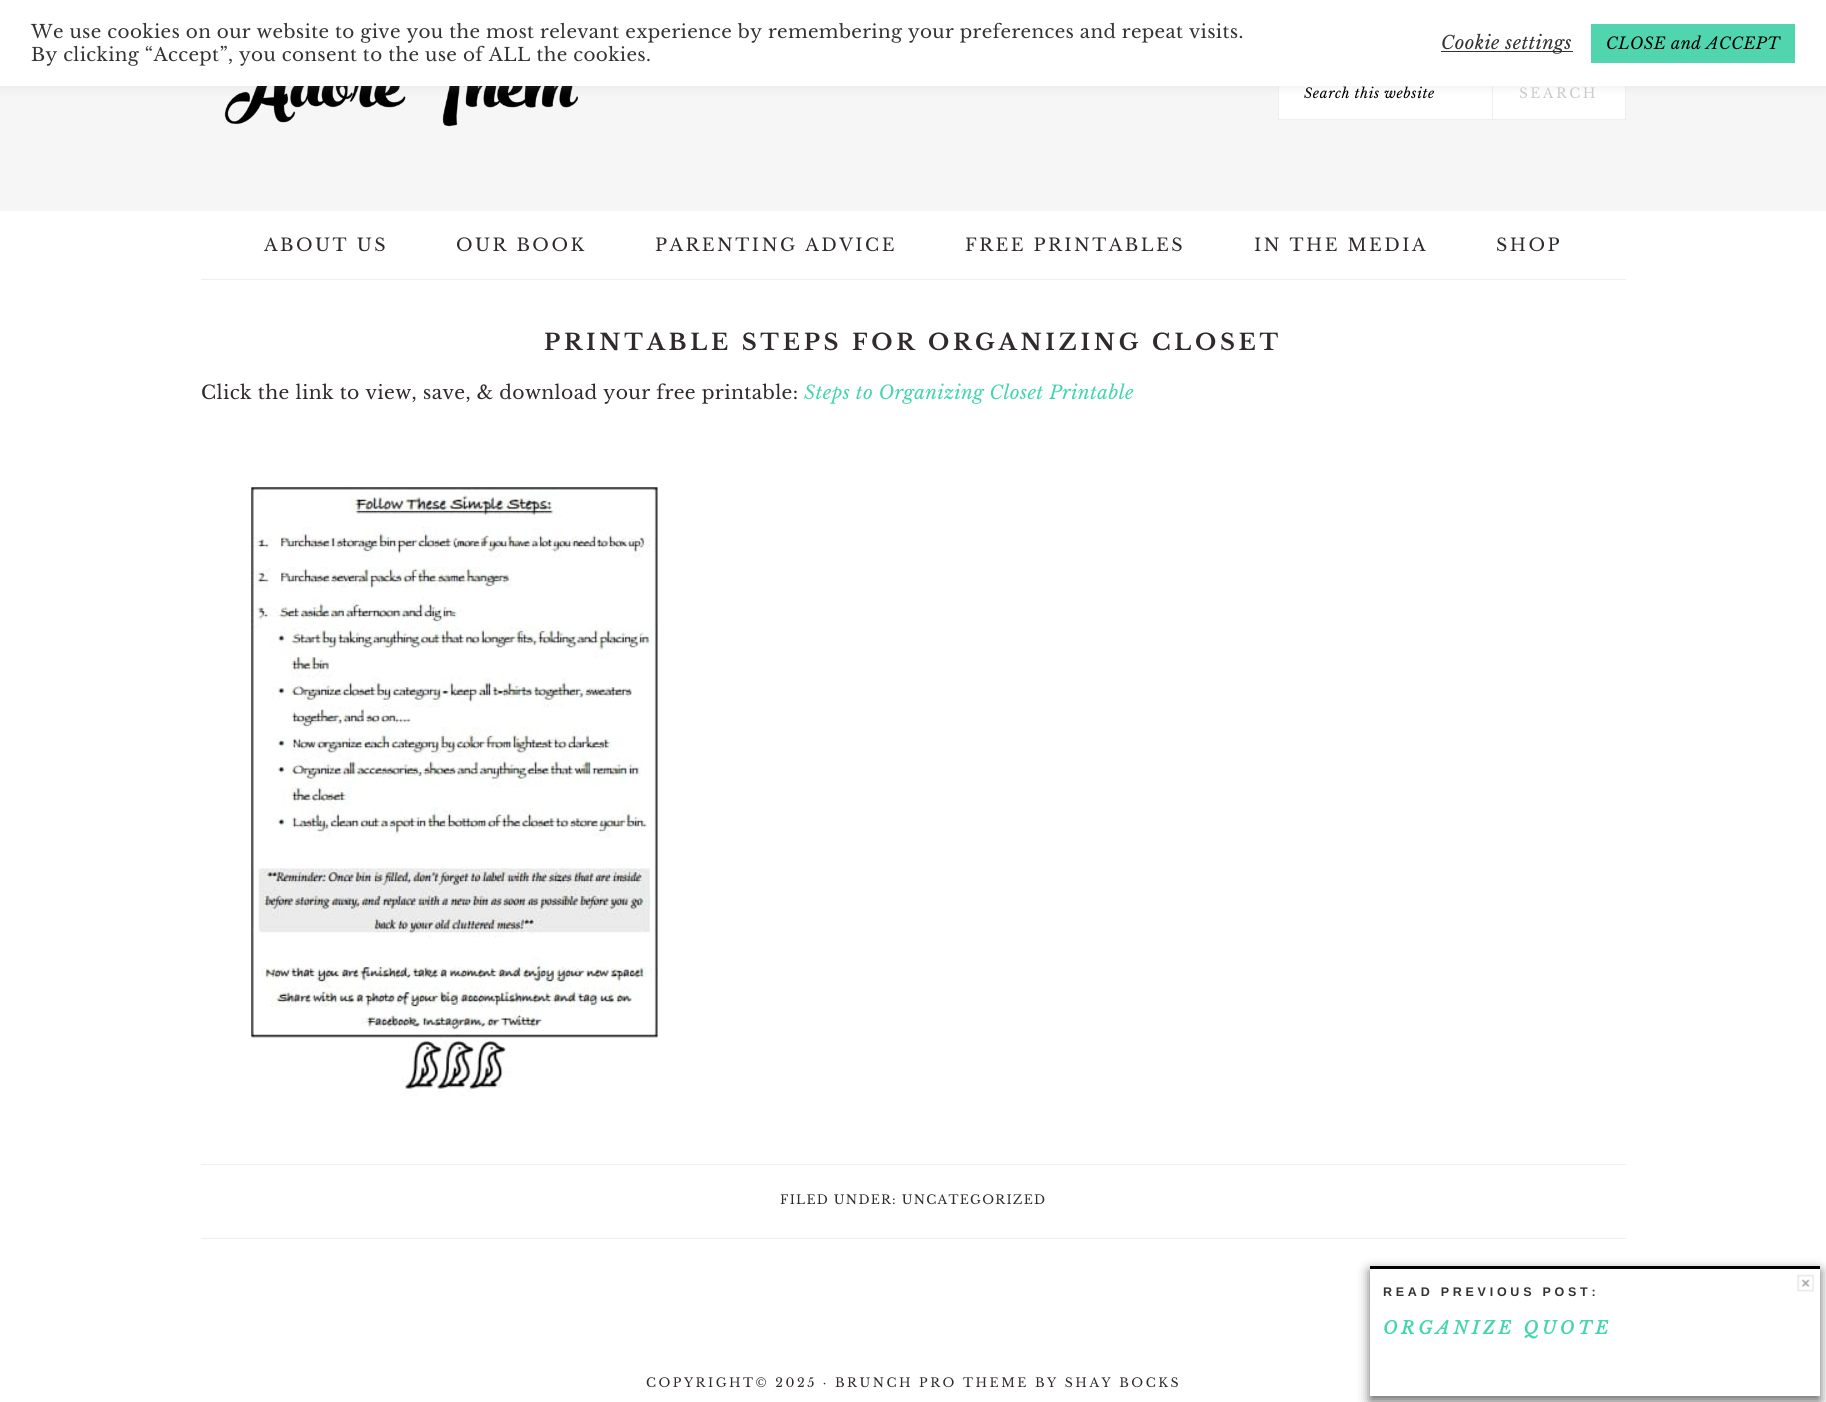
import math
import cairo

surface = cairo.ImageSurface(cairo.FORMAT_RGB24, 1826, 1402)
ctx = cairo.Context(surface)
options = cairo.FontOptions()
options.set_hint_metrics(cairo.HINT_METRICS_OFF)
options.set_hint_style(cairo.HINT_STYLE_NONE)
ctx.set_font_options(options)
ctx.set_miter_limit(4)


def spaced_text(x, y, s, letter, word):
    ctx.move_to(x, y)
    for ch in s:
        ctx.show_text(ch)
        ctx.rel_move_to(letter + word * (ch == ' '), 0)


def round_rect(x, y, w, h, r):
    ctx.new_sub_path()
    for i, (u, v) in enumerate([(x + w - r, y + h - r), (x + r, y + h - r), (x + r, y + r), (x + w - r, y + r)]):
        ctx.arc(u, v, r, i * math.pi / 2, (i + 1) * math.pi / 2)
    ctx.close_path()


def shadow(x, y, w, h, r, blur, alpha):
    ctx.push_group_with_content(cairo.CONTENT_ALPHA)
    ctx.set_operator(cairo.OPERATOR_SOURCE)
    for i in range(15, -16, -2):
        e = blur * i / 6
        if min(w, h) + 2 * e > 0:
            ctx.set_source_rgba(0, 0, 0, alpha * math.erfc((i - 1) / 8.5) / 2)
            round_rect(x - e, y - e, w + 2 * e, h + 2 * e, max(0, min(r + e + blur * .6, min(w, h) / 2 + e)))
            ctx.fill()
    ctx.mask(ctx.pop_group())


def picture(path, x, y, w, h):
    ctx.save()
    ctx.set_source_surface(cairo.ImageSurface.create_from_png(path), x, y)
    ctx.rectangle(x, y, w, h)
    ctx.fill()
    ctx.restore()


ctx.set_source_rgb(1, 1, 1)
ctx.paint()
ctx.set_source_rgb(0.961, 0.961, 0.961)
ctx.rectangle(0, 86, 1826, 125)
ctx.fill()
picture("img1.png", 224, 86, 355, 41)
ctx.set_source_rgb(1, 1, 1)
ctx.rectangle(1279, 86, 213, 33)
ctx.fill()
ctx.rectangle(1278.5, 65.5, 214, 54)
ctx.set_source_rgb(0.933, 0.933, 0.933)
ctx.set_line_width(1)
ctx.stroke()
ctx.set_source_rgb(1, 1, 1)
ctx.rectangle(1493, 86, 132, 33)
ctx.fill()
ctx.set_source_rgb(0.933, 0.933, 0.933)
ctx.rectangle(1625, 86, 1, 34)
ctx.fill()
ctx.set_source_rgb(0.675, 0.671, 0.671)
shadow(0, -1, 1826, 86, 0, 6, 0.3)
ctx.set_source_rgb(1, 1, 1)
ctx.rectangle(0, 0, 1826, 86)
ctx.fill()
ctx.select_font_face("Libre Baskerville")
ctx.set_font_size(18.33)
ctx.set_source_rgb(0.2, 0.2, 0.2)
spaced_text(31, 38, "We use cookies on our website to give you the most relevant experience by remembering your preferences and repeat visits.", 0.38, 0)
spaced_text(31, 61, "By clicking “Accept”, you consent to the use of ALL the cookies.", 0.38, 0)
ctx.rectangle(1441, 51, 132, 1)
ctx.fill()
ctx.select_font_face("Libre Baskerville", cairo.FONT_SLANT_ITALIC)
spaced_text(1441, 49, "Cookie settings", 0.38, 0)
ctx.set_source_rgb(0.314, 0.835, 0.686)
ctx.rectangle(1591, 24, 204, 39)
ctx.fill()
ctx.set_font_size(16.25)
ctx.set_source_rgb(0, 0, 0)
spaced_text(1606, 49, "CLOSE and ACCEPT", 0.38, 0)
ctx.set_font_size(13.75)
spaced_text(1304, 98, "Search this website", 0.6, 0)
ctx.set_source_rgb(0.933, 0.933, 0.933)
ctx.rectangle(1493, 119, 133, 1)
ctx.fill()
ctx.select_font_face("Libre Baskerville")
ctx.set_source_rgb(0.8, 0.8, 0.8)
spaced_text(1519, 98, "SEARCH", 2.5, 0)
ctx.set_source_rgb(0.933, 0.933, 0.933)
ctx.rectangle(201, 279, 1425, 1)
ctx.fill()
ctx.set_font_size(17.5)
ctx.set_source_rgb(0.188, 0.165, 0.173)
spaced_text(264, 251, "ABOUT US", 2.5, 0)
spaced_text(456, 251, "OUR BOOK", 2.5, 0)
spaced_text(655, 251, "PARENTING ADVICE", 2.5, 0)
spaced_text(965, 251, "FREE PRINTABLES", 2.5, 0)
spaced_text(1254, 251, "IN THE MEDIA", 2.5, 0)
spaced_text(1496, 251, "SHOP", 2.5, 0)
ctx.select_font_face("Libre Baskerville", cairo.FONT_SLANT_NORMAL, cairo.FONT_WEIGHT_BOLD)
ctx.set_font_size(22.5)
spaced_text(544, 350, "PRINTABLE STEPS FOR ORGANIZING CLOSET", 3.75, 0)
ctx.select_font_face("Libre Baskerville")
ctx.set_font_size(18.75)
spaced_text(201, 399, "Click the link to view, save, & download your free printable:", 0.38, 0)
ctx.select_font_face("Libre Baskerville", cairo.FONT_SLANT_ITALIC)
ctx.set_source_rgb(0.267, 0.835, 0.686)
spaced_text(804, 399, "Steps to Organizing Closet Printable", 0.38, 0)
picture("img2.png", 251, 487, 408, 610)
ctx.set_source_rgb(0.933, 0.933, 0.933)
ctx.rectangle(201, 1164, 1425, 1)
ctx.fill()
ctx.rectangle(201, 1238, 1425, 1)
ctx.fill()
ctx.select_font_face("Libre Baskerville")
ctx.set_font_size(12.5)
ctx.set_source_rgb(0.188, 0.165, 0.173)
spaced_text(780, 1204, "FILED UNDER: UNCATEGORIZED", 1.25, 0)
spaced_text(646, 1387, "COPYRIGHT© 2025 · BRUNCH PRO THEME BY SHAY BOCKS", 2.5, 0)
ctx.save()
ctx.set_fill_rule(cairo.FILL_RULE_EVEN_ODD)
ctx.new_path()
ctx.move_to(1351, 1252)
ctx.line_to(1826, 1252)
ctx.line_to(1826, 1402)
ctx.line_to(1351, 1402)
ctx.close_path()
ctx.move_to(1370, 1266)
ctx.line_to(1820, 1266)
ctx.line_to(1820, 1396)
ctx.line_to(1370, 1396)
ctx.close_path()
ctx.clip()
ctx.set_source_rgb(0.4, 0.4, 0.4)
shadow(1370, 1271, 450, 130, 0, 6, 1)
ctx.restore()
ctx.set_source_rgb(0, 0, 0)
ctx.rectangle(1370, 1266, 450, 3)
ctx.fill()
ctx.select_font_face("Liberation Sans", cairo.FONT_SLANT_NORMAL, cairo.FONT_WEIGHT_BOLD)
ctx.set_source_rgb(0.2, 0.2, 0.2)
spaced_text(1383, 1296, "READ PREVIOUS POST:", 3.75, 0)
picture("img3.png", 1797, 1274, 17, 18)
ctx.select_font_face("Libre Baskerville", cairo.FONT_SLANT_ITALIC, cairo.FONT_WEIGHT_BOLD)
ctx.set_font_size(17.5)
ctx.set_source_rgb(0.267, 0.835, 0.686)
spaced_text(1383, 1334, "ORGANIZE QUOTE", 3.75, 0)
surface.write_to_png("page.png")
